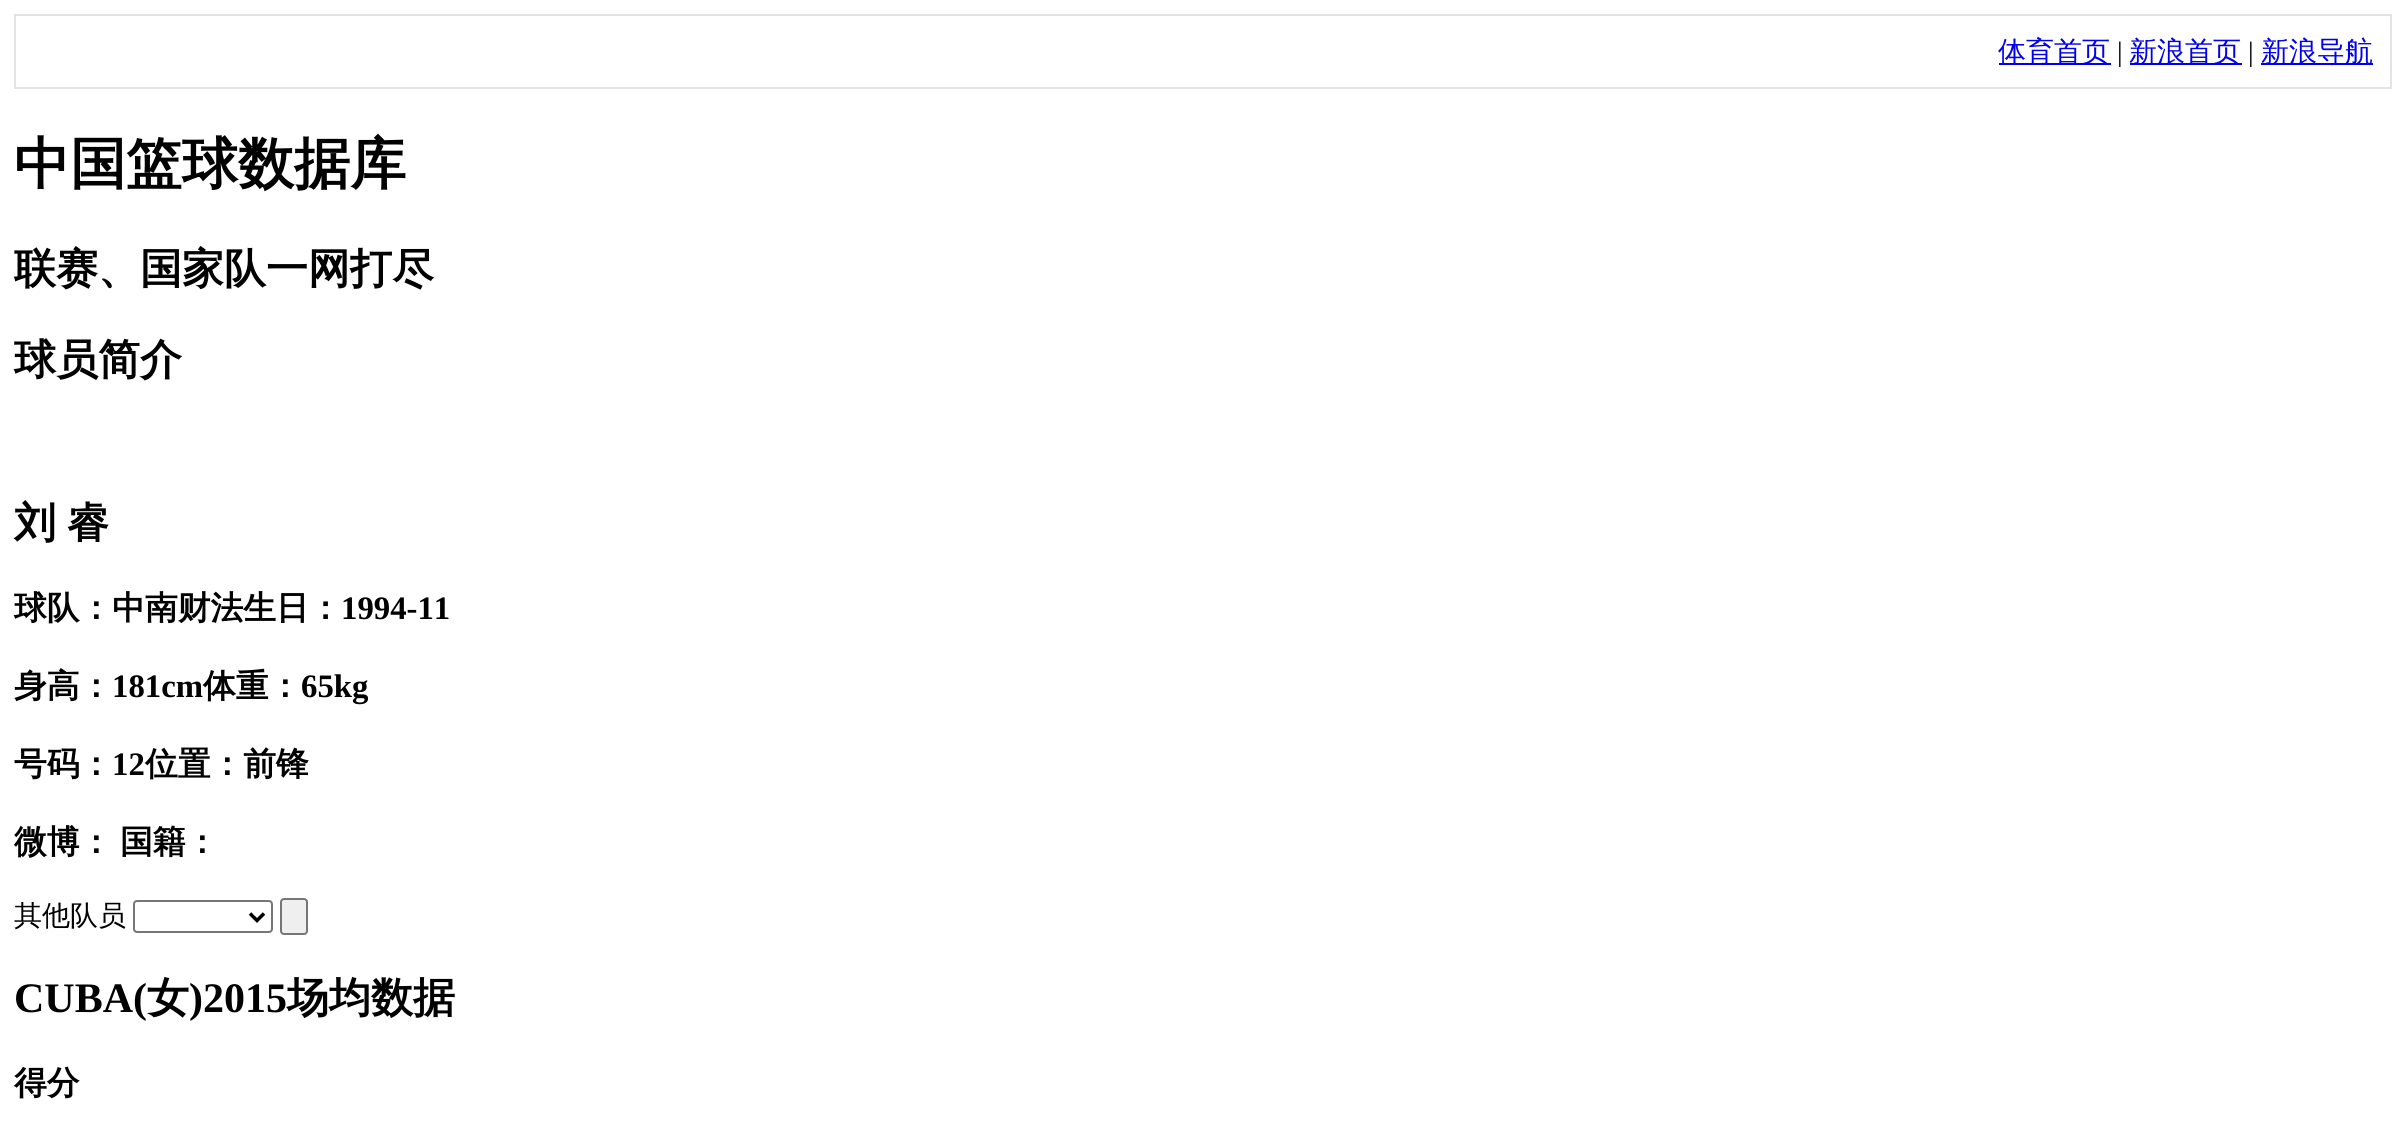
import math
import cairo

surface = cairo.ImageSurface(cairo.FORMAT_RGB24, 2405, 1142)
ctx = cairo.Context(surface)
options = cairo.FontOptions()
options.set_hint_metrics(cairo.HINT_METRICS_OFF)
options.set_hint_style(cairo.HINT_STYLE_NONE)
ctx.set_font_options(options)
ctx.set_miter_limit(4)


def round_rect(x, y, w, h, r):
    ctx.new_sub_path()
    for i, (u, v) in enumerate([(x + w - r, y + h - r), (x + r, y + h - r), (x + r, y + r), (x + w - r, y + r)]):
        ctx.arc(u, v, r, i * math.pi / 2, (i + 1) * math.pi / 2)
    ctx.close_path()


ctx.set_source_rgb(1, 1, 1)
ctx.paint()
ctx.rectangle(15, 15, 2376, 73)
ctx.set_source_rgb(0.89, 0.89, 0.89)
ctx.stroke()
ctx.set_source_rgb(0, 0, 0.933)
ctx.rectangle(1999, 63, 112, 2)
ctx.fill()
ctx.select_font_face("WenQuanYi Zen Hei Medium")
ctx.set_font_size(28)
ctx.move_to(1998, 61)
ctx.show_text("体育首页")
ctx.select_font_face("Liberation Serif")
ctx.set_source_rgb(0, 0, 0)
ctx.move_to(2117, 61)
ctx.show_text("|")
ctx.set_source_rgb(0, 0, 0.933)
ctx.rectangle(2130, 63, 112, 2)
ctx.fill()
ctx.select_font_face("WenQuanYi Zen Hei Medium")
ctx.move_to(2129, 61)
ctx.show_text("新浪首页")
ctx.select_font_face("Liberation Serif")
ctx.set_source_rgb(0, 0, 0)
ctx.move_to(2248, 61)
ctx.show_text("|")
ctx.set_source_rgb(0, 0, 0.933)
ctx.rectangle(2261, 63, 112, 2)
ctx.fill()
ctx.select_font_face("WenQuanYi Zen Hei Medium")
ctx.move_to(2261, 61)
ctx.show_text("新浪导航")
ctx.select_font_face("WenQuanYi Zen Hei", cairo.FONT_SLANT_NORMAL, cairo.FONT_WEIGHT_BOLD)
ctx.set_font_size(56)
ctx.set_source_rgb(0, 0, 0)
ctx.move_to(14, 183)
ctx.show_text("中国篮球数据库")
ctx.set_font_size(42)
ctx.move_to(14, 283)
ctx.show_text("联赛、国家队一网打尽")
ctx.move_to(14, 374)
ctx.show_text("球员简介")
ctx.move_to(14, 537)
ctx.show_text("刘")
ctx.move_to(67, 537)
ctx.show_text("睿")
ctx.set_font_size(32.75)
ctx.move_to(14, 619)
ctx.show_text("球队：中南财法生日：")
ctx.select_font_face("Liberation Serif", cairo.FONT_SLANT_NORMAL, cairo.FONT_WEIGHT_BOLD)
ctx.move_to(341, 619)
ctx.show_text("1994-11")
ctx.select_font_face("WenQuanYi Zen Hei", cairo.FONT_SLANT_NORMAL, cairo.FONT_WEIGHT_BOLD)
ctx.move_to(14, 697)
ctx.show_text("身高：")
ctx.select_font_face("Liberation Serif", cairo.FONT_SLANT_NORMAL, cairo.FONT_WEIGHT_BOLD)
ctx.move_to(112, 697)
ctx.show_text("181cm")
ctx.select_font_face("WenQuanYi Zen Hei", cairo.FONT_SLANT_NORMAL, cairo.FONT_WEIGHT_BOLD)
ctx.move_to(203, 697)
ctx.show_text("体重：")
ctx.select_font_face("Liberation Serif", cairo.FONT_SLANT_NORMAL, cairo.FONT_WEIGHT_BOLD)
ctx.move_to(301, 697)
ctx.show_text("65kg")
ctx.select_font_face("WenQuanYi Zen Hei", cairo.FONT_SLANT_NORMAL, cairo.FONT_WEIGHT_BOLD)
ctx.move_to(14, 775)
ctx.show_text("号码：")
ctx.select_font_face("Liberation Serif", cairo.FONT_SLANT_NORMAL, cairo.FONT_WEIGHT_BOLD)
ctx.move_to(112, 775)
ctx.show_text("12")
ctx.select_font_face("WenQuanYi Zen Hei", cairo.FONT_SLANT_NORMAL, cairo.FONT_WEIGHT_BOLD)
ctx.move_to(145, 775)
ctx.show_text("位置：前锋")
ctx.move_to(14, 853)
ctx.show_text("微博：")
ctx.move_to(120, 853)
ctx.show_text("国籍：")
ctx.select_font_face("WenQuanYi Zen Hei Medium")
ctx.set_font_size(28)
ctx.move_to(14, 925)
ctx.show_text("其他队员")
round_rect(134, 901, 138, 31, 3)
ctx.set_source_rgb(0.463, 0.463, 0.463)
ctx.stroke()
ctx.new_path()
ctx.move_to(250, 913.5)
ctx.line_to(257, 920.5)
ctx.line_to(264, 913.5)
ctx.set_source_rgb(0, 0, 0)
ctx.set_line_width(3.5)
ctx.stroke()
ctx.set_source_rgb(0.937, 0.937, 0.937)
round_rect(281, 899, 26, 35, 3)
ctx.fill_preserve()
ctx.set_source_rgb(0.463, 0.463, 0.463)
ctx.set_line_width(2)
ctx.stroke()
ctx.select_font_face("Liberation Serif", cairo.FONT_SLANT_NORMAL, cairo.FONT_WEIGHT_BOLD)
ctx.set_font_size(42)
ctx.set_source_rgb(0, 0, 0)
ctx.move_to(14, 1012)
ctx.show_text("CUBA(")
ctx.select_font_face("WenQuanYi Zen Hei", cairo.FONT_SLANT_NORMAL, cairo.FONT_WEIGHT_BOLD)
ctx.move_to(147, 1012)
ctx.show_text("女")
ctx.select_font_face("Liberation Serif", cairo.FONT_SLANT_NORMAL, cairo.FONT_WEIGHT_BOLD)
ctx.move_to(189, 1012)
ctx.show_text(")2015")
ctx.select_font_face("WenQuanYi Zen Hei", cairo.FONT_SLANT_NORMAL, cairo.FONT_WEIGHT_BOLD)
ctx.move_to(287, 1012)
ctx.show_text("场均数据")
ctx.set_font_size(32.75)
ctx.move_to(14, 1094)
ctx.show_text("得分")
surface.write_to_png("page.png")
